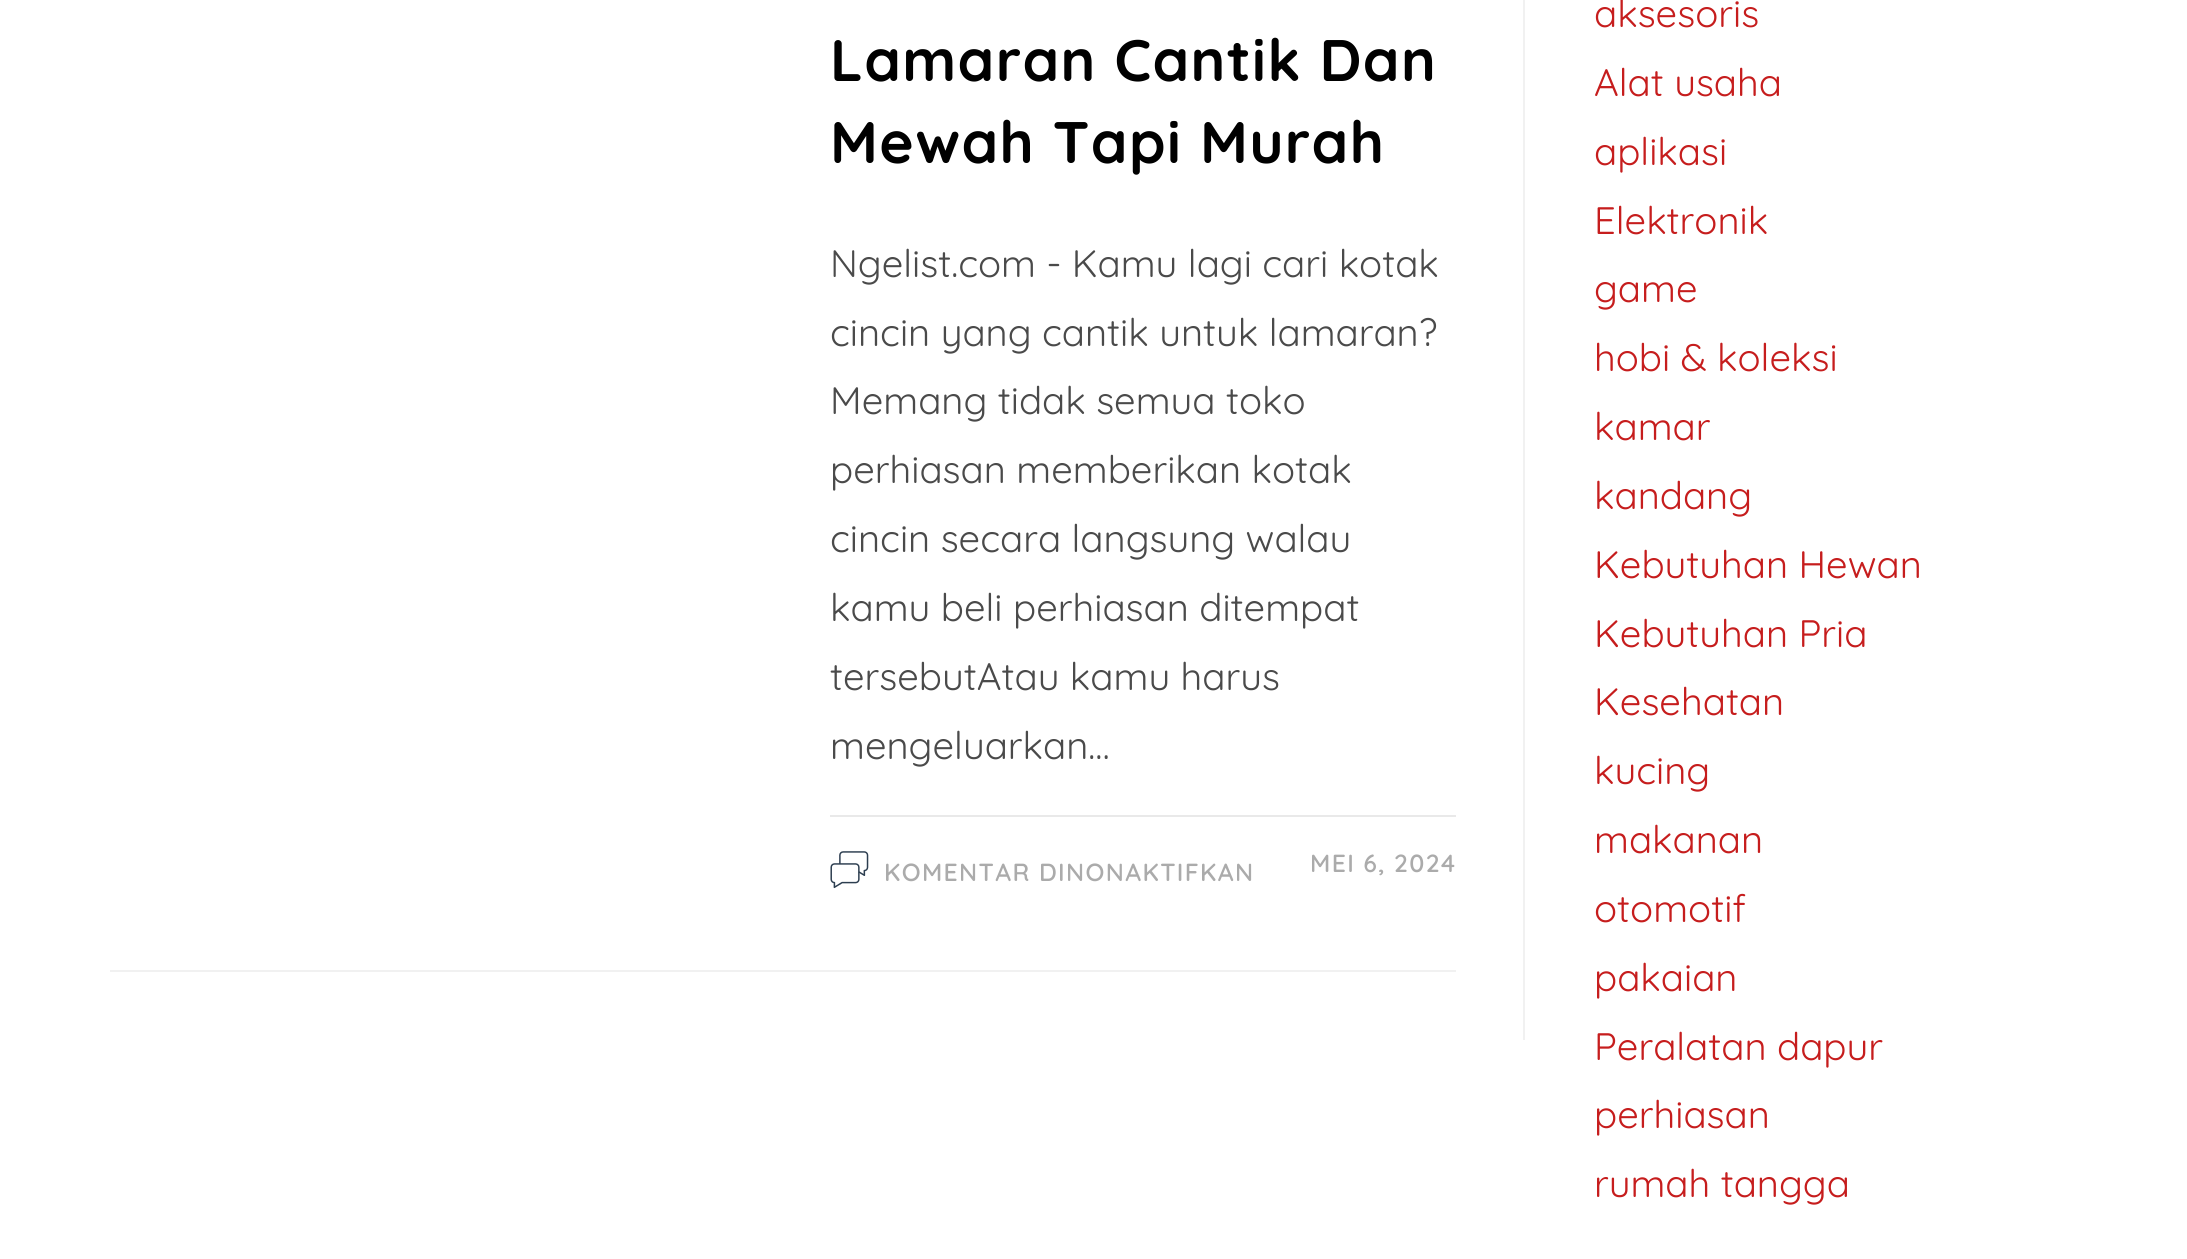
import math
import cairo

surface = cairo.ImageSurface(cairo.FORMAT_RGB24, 2187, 1259)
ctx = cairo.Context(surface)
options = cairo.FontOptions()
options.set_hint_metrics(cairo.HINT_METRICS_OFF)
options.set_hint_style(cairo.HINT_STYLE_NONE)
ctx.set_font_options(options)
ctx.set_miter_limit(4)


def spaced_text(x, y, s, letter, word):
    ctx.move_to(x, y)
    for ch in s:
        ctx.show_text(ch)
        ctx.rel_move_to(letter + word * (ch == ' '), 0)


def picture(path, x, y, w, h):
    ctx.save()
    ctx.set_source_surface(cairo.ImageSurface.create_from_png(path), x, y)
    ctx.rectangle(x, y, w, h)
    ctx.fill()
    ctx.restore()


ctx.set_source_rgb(1, 1, 1)
ctx.paint()
ctx.set_source_rgb(0.945, 0.945, 0.945)
ctx.rectangle(1523, 0, 2, 1040)
ctx.fill()
ctx.rectangle(110, 970, 1346, 2)
ctx.fill()
ctx.select_font_face("Quicksand", cairo.FONT_SLANT_NORMAL, cairo.FONT_WEIGHT_BOLD)
ctx.set_font_size(58.5)
ctx.set_source_rgb(0, 0, 0)
spaced_text(830, 81, "Lamaran Cantik Dan", 1.35, 0)
spaced_text(830, 163, "Mewah Tapi Murah", 1.35, 0)
ctx.select_font_face("Quicksand")
ctx.set_font_size(38.25)
ctx.set_source_rgb(0.29, 0.29, 0.29)
ctx.move_to(830, 277)
ctx.show_text("Ngelist.com - Kamu lagi cari kotak")
ctx.move_to(830, 346)
ctx.show_text("cincin yang cantik untuk lamaran?")
ctx.move_to(830, 414)
ctx.show_text("Memang tidak semua toko")
ctx.move_to(830, 483)
ctx.show_text("perhiasan memberikan kotak")
ctx.move_to(830, 552)
ctx.show_text("cincin secara langsung walau")
ctx.move_to(830, 621)
ctx.show_text("kamu beli perhiasan ditempat")
ctx.move_to(830, 690)
ctx.show_text("tersebutAtau kamu harus")
ctx.move_to(830, 759)
ctx.show_text("mengeluarkan…")
ctx.set_source_rgb(0.914, 0.914, 0.914)
ctx.rectangle(830, 815, 626, 2)
ctx.fill()
picture("img1.png", 830, 851, 39, 38)
ctx.select_font_face("Quicksand SemiBold")
ctx.set_font_size(24.75)
ctx.set_source_rgb(0.671, 0.671, 0.671)
spaced_text(884, 881, "KOMENTAR DINONAKTIFKAN", 1.35, 0)
spaced_text(1310, 872, "MEI 6, 2024", 1.35, 0)
ctx.select_font_face("Quicksand")
ctx.set_font_size(38.25)
ctx.set_source_rgb(0.776, 0.114, 0.114)
ctx.move_to(1594, 27)
ctx.show_text("aksesoris")
ctx.move_to(1594, 96)
ctx.show_text("Alat usaha")
ctx.move_to(1594, 165)
ctx.show_text("aplikasi")
ctx.move_to(1594, 234)
ctx.show_text("Elektronik")
ctx.move_to(1594, 302)
ctx.show_text("game")
ctx.move_to(1594, 371)
ctx.show_text("hobi & koleksi")
ctx.move_to(1594, 440)
ctx.show_text("kamar")
ctx.move_to(1594, 509)
ctx.show_text("kandang")
ctx.move_to(1594, 578)
ctx.show_text("Kebutuhan Hewan")
ctx.move_to(1594, 647)
ctx.show_text("Kebutuhan Pria")
ctx.move_to(1594, 715)
ctx.show_text("Kesehatan")
ctx.move_to(1594, 784)
ctx.show_text("kucing")
ctx.move_to(1594, 853)
ctx.show_text("makanan")
ctx.move_to(1594, 922)
ctx.show_text("otomotif")
ctx.move_to(1594, 991)
ctx.show_text("pakaian")
ctx.move_to(1594, 1060)
ctx.show_text("Peralatan dapur")
ctx.move_to(1594, 1128)
ctx.show_text("perhiasan")
ctx.move_to(1594, 1197)
ctx.show_text("rumah tangga")
surface.write_to_png("page.png")
